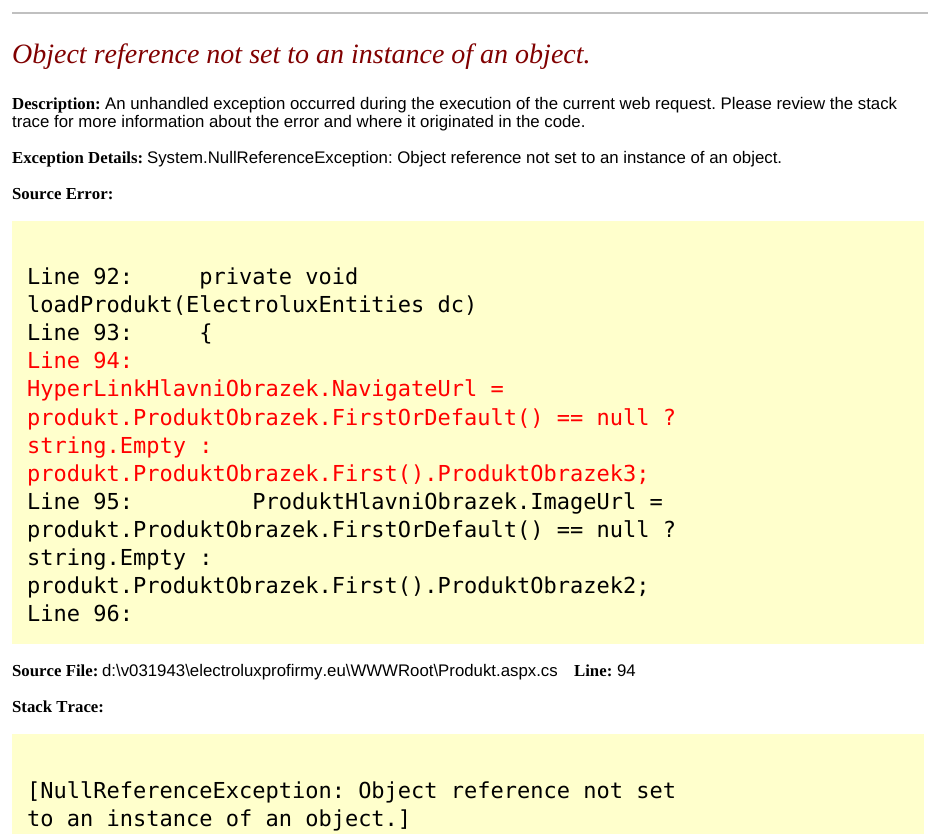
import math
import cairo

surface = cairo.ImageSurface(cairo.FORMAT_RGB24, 936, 834)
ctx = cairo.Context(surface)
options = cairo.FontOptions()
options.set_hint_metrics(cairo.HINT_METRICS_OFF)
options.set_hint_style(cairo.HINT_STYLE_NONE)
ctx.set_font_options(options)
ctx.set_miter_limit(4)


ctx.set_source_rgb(1, 1, 1)
ctx.paint()
ctx.set_source_rgb(0.753, 0.753, 0.753)
ctx.rectangle(12, 12, 916, 2)
ctx.fill()
ctx.select_font_face("Liberation Serif", cairo.FONT_SLANT_ITALIC)
ctx.set_font_size(28)
ctx.set_source_rgb(0.502, 0, 0)
ctx.move_to(12, 63)
ctx.show_text("Object reference not set to an instance of an object.")
ctx.select_font_face("Liberation Serif", cairo.FONT_SLANT_NORMAL, cairo.FONT_WEIGHT_BOLD)
ctx.set_font_size(16.8)
ctx.set_source_rgb(0, 0, 0)
ctx.move_to(12, 109)
ctx.show_text("Description:")
ctx.select_font_face("Liberation Sans")
ctx.move_to(105, 109)
ctx.show_text("An unhandled exception occurred during the execution of the current web request. Please review the stack")
ctx.move_to(12, 127)
ctx.show_text("trace for more information about the error and where it originated in the code.")
ctx.select_font_face("Liberation Serif", cairo.FONT_SLANT_NORMAL, cairo.FONT_WEIGHT_BOLD)
ctx.move_to(12, 163)
ctx.show_text("Exception Details:")
ctx.select_font_face("Liberation Sans")
ctx.move_to(147, 163)
ctx.show_text("System.NullReferenceException: Object reference not set to an instance of an object.")
ctx.select_font_face("Liberation Serif", cairo.FONT_SLANT_NORMAL, cairo.FONT_WEIGHT_BOLD)
ctx.move_to(12, 199)
ctx.show_text("Source Error:")
ctx.set_source_rgb(1, 1, 0.8)
ctx.rectangle(12, 221, 912, 423)
ctx.fill()
ctx.select_font_face("DejaVu Sans Mono")
ctx.set_font_size(22)
ctx.set_source_rgb(0, 0, 0)
ctx.move_to(27, 284)
ctx.show_text("Line 92:     private void")
ctx.move_to(27, 312)
ctx.show_text("loadProdukt(ElectroluxEntities dc)")
ctx.move_to(27, 340)
ctx.show_text("Line 93:     {")
ctx.set_source_rgb(1, 0, 0)
ctx.move_to(27, 368)
ctx.show_text("Line 94:")
ctx.move_to(27, 396)
ctx.show_text("HyperLinkHlavniObrazek.NavigateUrl =")
ctx.move_to(27, 425)
ctx.show_text("produkt.ProduktObrazek.FirstOrDefault() == null ?")
ctx.move_to(27, 453)
ctx.show_text("string.Empty :")
ctx.move_to(27, 481)
ctx.show_text("produkt.ProduktObrazek.First().ProduktObrazek3;")
ctx.set_source_rgb(0, 0, 0)
ctx.move_to(27, 509)
ctx.show_text("Line 95:         ProduktHlavniObrazek.ImageUrl =")
ctx.move_to(27, 537)
ctx.show_text("produkt.ProduktObrazek.FirstOrDefault() == null ?")
ctx.move_to(27, 565)
ctx.show_text("string.Empty :")
ctx.move_to(27, 593)
ctx.show_text("produkt.ProduktObrazek.First().ProduktObrazek2;")
ctx.move_to(27, 621)
ctx.show_text("Line 96:")
ctx.select_font_face("Liberation Serif", cairo.FONT_SLANT_NORMAL, cairo.FONT_WEIGHT_BOLD)
ctx.set_font_size(16.8)
ctx.move_to(12, 676)
ctx.show_text("Source File:")
ctx.select_font_face("Liberation Sans")
ctx.move_to(102, 676)
ctx.show_text("d:\\v031943\\electroluxprofirmy.eu\\WWWRoot\\Produkt.aspx.cs")
ctx.select_font_face("Liberation Serif", cairo.FONT_SLANT_NORMAL, cairo.FONT_WEIGHT_BOLD)
ctx.move_to(574, 676)
ctx.show_text("Line:")
ctx.select_font_face("Liberation Sans")
ctx.move_to(617, 676)
ctx.show_text("94")
ctx.select_font_face("Liberation Serif", cairo.FONT_SLANT_NORMAL, cairo.FONT_WEIGHT_BOLD)
ctx.move_to(12, 712)
ctx.show_text("Stack Trace:")
ctx.set_source_rgb(1, 1, 0.8)
ctx.rectangle(12, 734, 912, 100)
ctx.fill()
ctx.select_font_face("DejaVu Sans Mono")
ctx.set_font_size(22)
ctx.set_source_rgb(0, 0, 0)
ctx.move_to(27, 798)
ctx.show_text("[NullReferenceException: Object reference not set")
ctx.move_to(27, 826)
ctx.show_text("to an instance of an object.]")
surface.write_to_png("page.png")
